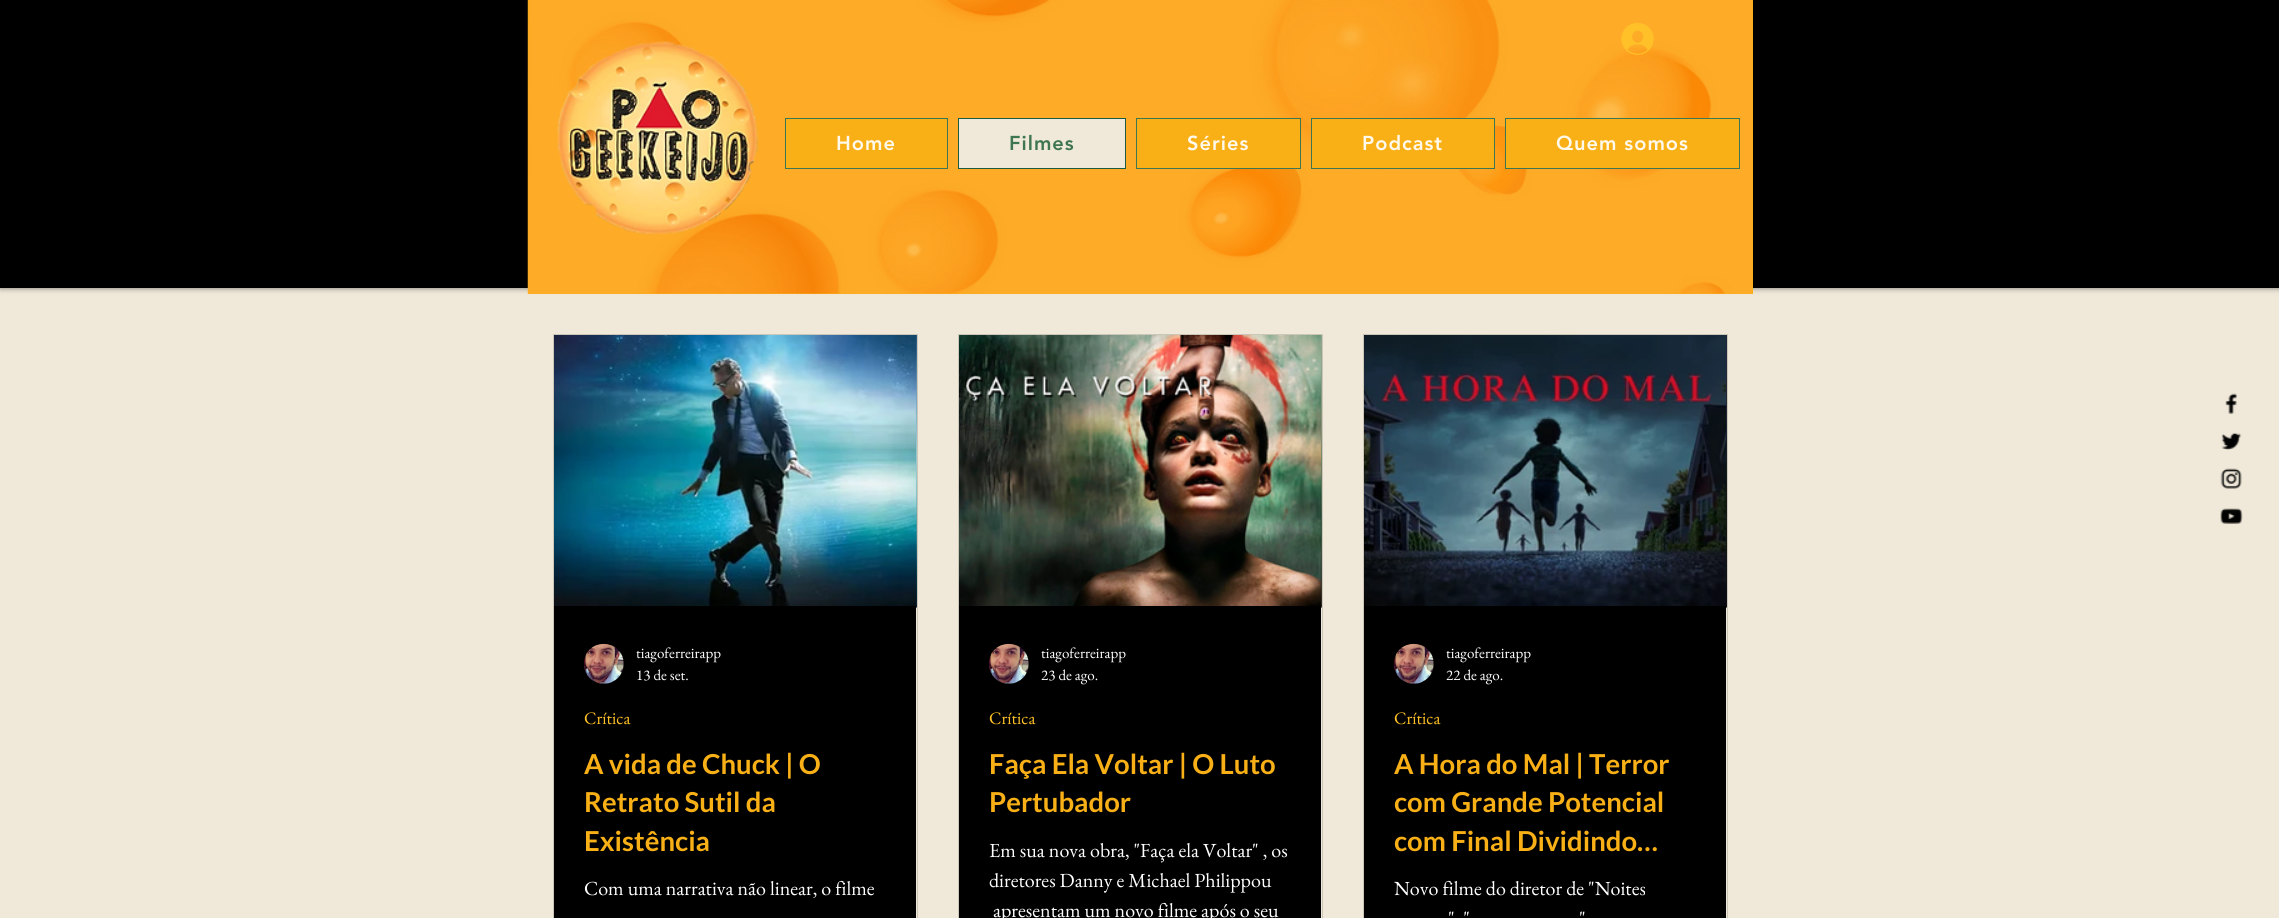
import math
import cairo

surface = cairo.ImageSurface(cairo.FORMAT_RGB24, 2279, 918)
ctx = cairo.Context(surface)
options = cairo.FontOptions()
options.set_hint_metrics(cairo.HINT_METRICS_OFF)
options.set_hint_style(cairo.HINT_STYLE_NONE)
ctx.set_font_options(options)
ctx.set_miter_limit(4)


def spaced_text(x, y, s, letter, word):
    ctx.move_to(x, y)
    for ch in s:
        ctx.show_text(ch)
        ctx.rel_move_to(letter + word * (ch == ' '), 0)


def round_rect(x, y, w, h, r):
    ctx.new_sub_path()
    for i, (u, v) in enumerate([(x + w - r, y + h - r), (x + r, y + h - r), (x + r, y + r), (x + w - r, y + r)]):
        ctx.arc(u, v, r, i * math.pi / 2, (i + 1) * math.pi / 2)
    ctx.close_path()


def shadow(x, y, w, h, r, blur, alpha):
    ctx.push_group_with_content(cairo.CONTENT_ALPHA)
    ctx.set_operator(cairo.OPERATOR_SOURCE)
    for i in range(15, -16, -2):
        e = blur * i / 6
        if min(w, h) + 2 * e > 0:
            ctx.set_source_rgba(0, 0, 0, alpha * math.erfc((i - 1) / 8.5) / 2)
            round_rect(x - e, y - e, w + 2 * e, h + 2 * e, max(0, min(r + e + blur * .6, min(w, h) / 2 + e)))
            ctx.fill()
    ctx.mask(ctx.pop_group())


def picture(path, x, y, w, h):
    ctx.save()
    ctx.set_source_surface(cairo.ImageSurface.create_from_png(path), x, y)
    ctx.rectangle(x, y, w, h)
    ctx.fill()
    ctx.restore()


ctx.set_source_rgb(0.941, 0.914, 0.855)
ctx.paint()
ctx.set_source_rgb(0, 0, 0)
shadow(0, 0, 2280, 288, 0, 3, 0.5)
ctx.set_source_rgb(0, 0, 0)
ctx.rectangle(0, 0, 2279, 288)
ctx.fill()
ctx.set_source_rgb(0.969, 0.69, 0.086)
ctx.rectangle(528, 0, 1225, 294)
ctx.fill()
picture("img1.png", 527, 0, 1226, 294)
picture("img2.png", 557, 41, 201, 194)
picture("img3.png", 1621, 23, 33, 32)
ctx.rectangle(785.5, 118.5, 162, 50)
ctx.fill_preserve()
ctx.set_source_rgb(0.247, 0.463, 0.322)
ctx.set_line_width(1)
ctx.stroke()
ctx.select_font_face("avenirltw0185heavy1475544 Black")
ctx.set_font_size(20)
ctx.set_source_rgb(1, 0.976, 0.922)
spaced_text(836, 150, "Home", 1, 0)
ctx.set_source_rgb(0.941, 0.914, 0.855)
ctx.rectangle(958.5, 118.5, 167, 50)
ctx.fill_preserve()
ctx.set_source_rgb(0.106, 0.357, 0.247)
ctx.stroke()
ctx.set_source_rgb(0.247, 0.463, 0.322)
spaced_text(1009, 150, "Filmes", 1, 0)
ctx.set_source_rgb(0.969, 0.69, 0.086)
ctx.rectangle(1136.5, 118.5, 164, 50)
ctx.fill_preserve()
ctx.set_source_rgb(0.247, 0.463, 0.322)
ctx.stroke()
ctx.set_source_rgb(1, 0.976, 0.922)
spaced_text(1187, 150, "Séries", 1, 0)
ctx.set_source_rgb(0.969, 0.69, 0.086)
ctx.rectangle(1311.5, 118.5, 183, 50)
ctx.fill_preserve()
ctx.set_source_rgb(0.247, 0.463, 0.322)
ctx.stroke()
ctx.set_source_rgb(1, 0.976, 0.922)
spaced_text(1362, 150, "Podcast", 1, 0)
ctx.set_source_rgb(0.969, 0.69, 0.086)
ctx.rectangle(1505.5, 118.5, 234, 50)
ctx.fill_preserve()
ctx.set_source_rgb(0.247, 0.463, 0.322)
ctx.stroke()
ctx.set_source_rgb(1, 0.976, 0.922)
spaced_text(1556, 150, "Quem somos", 1, 0)
picture("img4.png", 2225, 393, 12, 21)
picture("img5.png", 2221, 432, 21, 18)
picture("img6.png", 2220, 468, 22, 21)
picture("img7.png", 2220, 508, 23, 16)
ctx.rectangle(553.5, 334.5, 364, 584)
ctx.set_source_rgb(0.8, 0.776, 0.725)
ctx.stroke()
picture("img8.png", 554, 335, 363, 273)
picture("img9.png", 554, 335, 362, 271)
ctx.set_source_rgb(0, 0, 0)
ctx.rectangle(554, 606, 362, 312)
ctx.fill()
picture("img10.png", 583, 643, 41, 41)
ctx.select_font_face("EB Garamond")
ctx.set_font_size(15)
ctx.set_source_rgb(1, 1, 1)
ctx.move_to(636, 658)
ctx.show_text("tiagoferreirapp")
ctx.move_to(636, 680)
ctx.show_text("13 de set.")
ctx.set_font_size(17.5)
ctx.set_source_rgb(1, 0.757, 0.153)
ctx.move_to(584, 724)
ctx.show_text("Crítica")
ctx.select_font_face("Lato", cairo.FONT_SLANT_NORMAL, cairo.FONT_WEIGHT_BOLD)
ctx.set_font_size(27.5)
ctx.set_source_rgb(0.969, 0.69, 0.086)
ctx.move_to(584, 774)
ctx.show_text("A vida de Chuck | O")
ctx.move_to(584, 812)
ctx.show_text("Retrato Sutil da")
ctx.move_to(584, 851)
ctx.show_text("Existência")
ctx.select_font_face("EB Garamond")
ctx.set_font_size(20)
ctx.set_source_rgb(1, 1, 1)
ctx.move_to(584, 895)
ctx.show_text("Com uma narrativa não linear, o filme")
ctx.rectangle(958.5, 334.5, 364, 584)
ctx.set_source_rgb(0.8, 0.776, 0.725)
ctx.stroke()
picture("img11.png", 959, 335, 362, 271)
picture("img12.png", 1321, 335, 1, 273)
ctx.set_source_rgb(0, 0, 0)
ctx.rectangle(959, 606, 362, 312)
ctx.fill()
picture("img10.png", 988, 643, 41, 41)
ctx.set_font_size(15)
ctx.set_source_rgb(1, 1, 1)
ctx.move_to(1041, 658)
ctx.show_text("tiagoferreirapp")
ctx.move_to(1041, 680)
ctx.show_text("23 de ago.")
ctx.set_font_size(17.5)
ctx.set_source_rgb(1, 0.757, 0.153)
ctx.move_to(989, 724)
ctx.show_text("Crítica")
ctx.select_font_face("Lato", cairo.FONT_SLANT_NORMAL, cairo.FONT_WEIGHT_BOLD)
ctx.set_font_size(27.5)
ctx.set_source_rgb(0.969, 0.69, 0.086)
ctx.move_to(989, 774)
ctx.show_text("Faça Ela Voltar | O Luto")
ctx.move_to(989, 812)
ctx.show_text("Pertubador")
ctx.select_font_face("EB Garamond")
ctx.set_font_size(20)
ctx.set_source_rgb(1, 1, 1)
ctx.move_to(989, 857)
ctx.show_text("Em sua nova obra, \"Faça ela Voltar\" , os")
ctx.move_to(989, 887)
ctx.show_text("diretores Danny e Michael Philippou")
ctx.move_to(993, 917)
ctx.show_text("apresentam um novo filme após o seu")
ctx.rectangle(1363.5, 334.5, 364, 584)
ctx.set_source_rgb(0.8, 0.776, 0.725)
ctx.stroke()
picture("img13.png", 1364, 335, 362, 271)
picture("img14.png", 1726, 335, 1, 273)
ctx.set_source_rgb(0, 0, 0)
ctx.rectangle(1364, 606, 362, 312)
ctx.fill()
picture("img10.png", 1393, 643, 41, 41)
ctx.set_font_size(15)
ctx.set_source_rgb(1, 1, 1)
ctx.move_to(1446, 658)
ctx.show_text("tiagoferreirapp")
ctx.move_to(1446, 680)
ctx.show_text("22 de ago.")
ctx.set_font_size(17.5)
ctx.set_source_rgb(1, 0.757, 0.153)
ctx.move_to(1394, 724)
ctx.show_text("Crítica")
ctx.select_font_face("Lato", cairo.FONT_SLANT_NORMAL, cairo.FONT_WEIGHT_BOLD)
ctx.set_font_size(27.5)
ctx.set_source_rgb(0.969, 0.69, 0.086)
ctx.move_to(1394, 774)
ctx.show_text("A Hora do Mal | Terror")
ctx.move_to(1394, 812)
ctx.show_text("com Grande Potencial")
ctx.move_to(1394, 851)
ctx.show_text("com Final Dividindo…")
ctx.select_font_face("EB Garamond")
ctx.set_font_size(20)
ctx.set_source_rgb(1, 1, 1)
ctx.move_to(1394, 895)
ctx.show_text("Novo filme do diretor de \"Noites")
ctx.move_to(1448, 925)
ctx.show_text("\", \"")
ctx.move_to(1579, 925)
ctx.show_text("\"")
surface.write_to_png("page.png")
